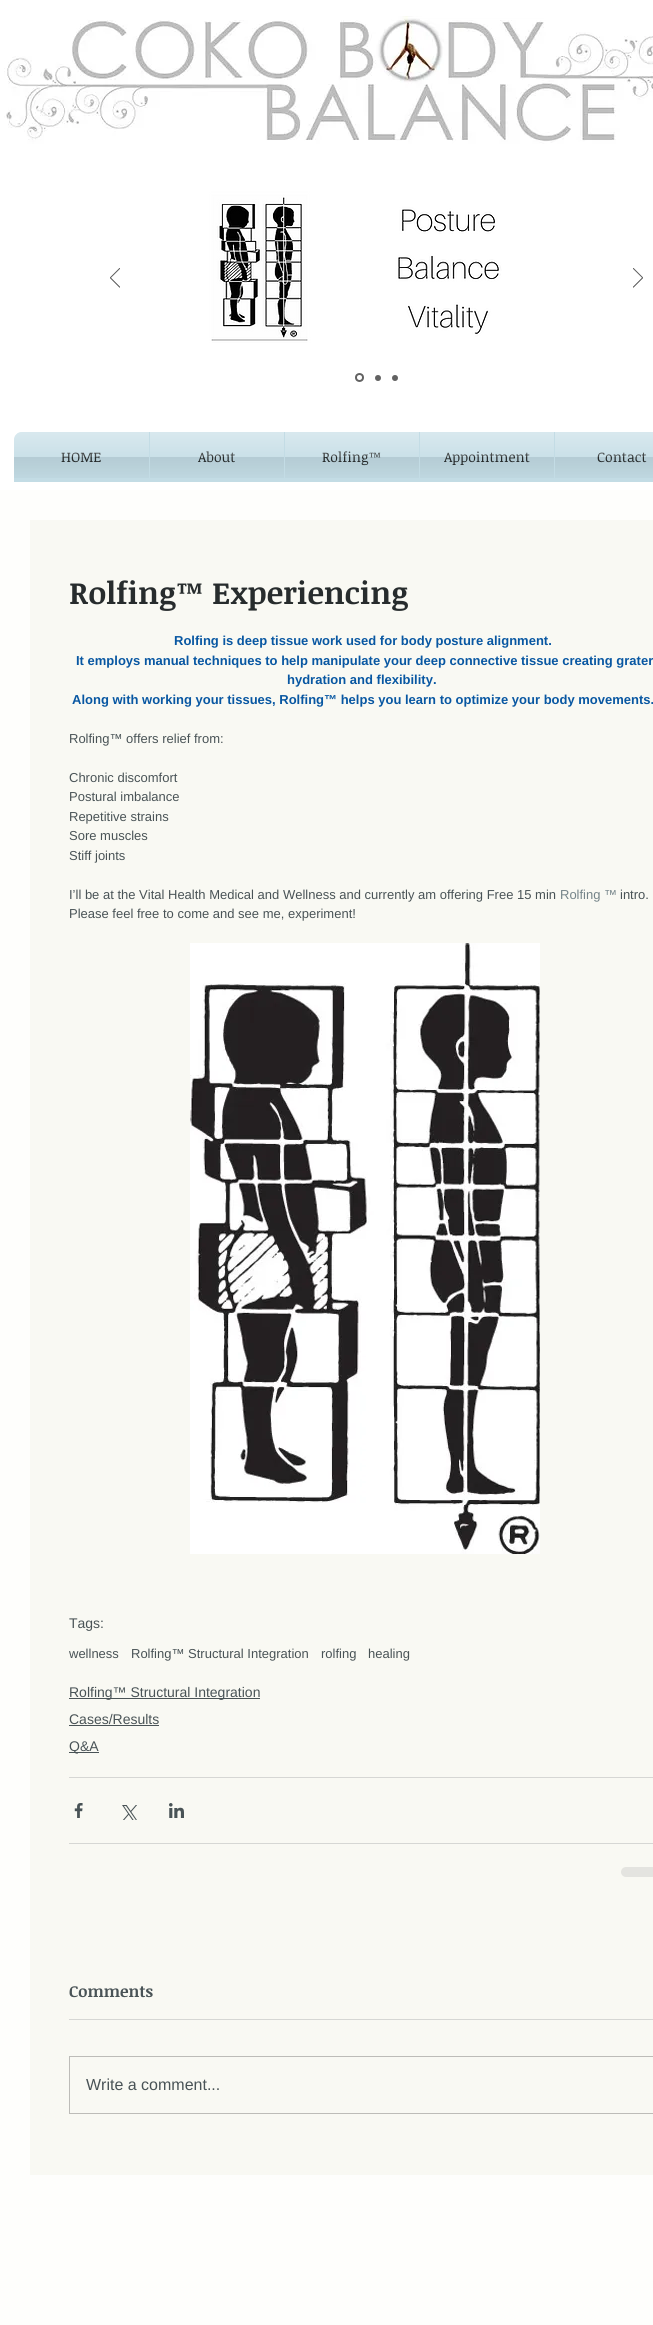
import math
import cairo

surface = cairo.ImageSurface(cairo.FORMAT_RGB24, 653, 2325)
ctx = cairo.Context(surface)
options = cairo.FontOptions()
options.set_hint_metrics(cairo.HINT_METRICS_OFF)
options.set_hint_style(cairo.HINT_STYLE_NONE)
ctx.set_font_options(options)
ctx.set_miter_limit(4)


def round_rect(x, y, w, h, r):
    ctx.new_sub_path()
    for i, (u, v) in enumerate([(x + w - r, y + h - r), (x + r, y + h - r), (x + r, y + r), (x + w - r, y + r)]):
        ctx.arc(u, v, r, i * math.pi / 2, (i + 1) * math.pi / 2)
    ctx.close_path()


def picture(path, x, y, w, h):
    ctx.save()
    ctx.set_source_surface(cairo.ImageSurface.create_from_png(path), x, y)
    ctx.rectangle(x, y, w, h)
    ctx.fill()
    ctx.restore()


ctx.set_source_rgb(1, 1, 1)
ctx.paint()
picture("img1.png", 4, 16, 649, 128)
picture("img2.png", 97, 159, 556, 241)
picture("img3.png", 110, 268, 10, 20)
picture("img4.png", 633, 268, 10, 20)
ctx.arc(359.5, 377.5, 3.5, 0, 2 * math.pi)
ctx.set_source_rgb(0.384, 0.384, 0.384)
ctx.stroke()
ctx.arc(378, 378, 3, 0, 2 * math.pi)
ctx.fill()
ctx.arc(395, 378, 3, 0, 2 * math.pi)
ctx.fill()
picture("img5.png", 14, 432, 8, 8)
ctx.set_source_rgb(0.765, 0.863, 0.898)
ctx.new_path()
ctx.move_to(22, 432)
ctx.line_to(149, 432)
ctx.line_to(149, 482)
ctx.line_to(14, 482)
ctx.line_to(14, 440)
ctx.curve_to(14, 435.5, 17.5, 432, 22, 432)
ctx.close_path()
ctx.fill()
ctx.select_font_face("Noticia Text")
ctx.set_font_size(14)
ctx.set_source_rgb(0.153, 0.173, 0.176)
ctx.move_to(61, 462)
ctx.show_text("HOME")
picture("img6.png", 14, 432, 135, 46)
ctx.set_source_rgb(0.765, 0.863, 0.898)
ctx.rectangle(149, 432, 504, 50)
ctx.fill()
ctx.set_source_rgb(0.153, 0.173, 0.176)
ctx.move_to(198, 462)
ctx.show_text("About")
picture("img7.png", 150, 432, 134, 46)
ctx.move_to(322, 462)
ctx.show_text("Rolfing™")
picture("img8.png", 285, 432, 134, 46)
ctx.move_to(444, 462)
ctx.show_text("Appointment")
picture("img9.png", 420, 432, 134, 46)
ctx.move_to(597, 462)
ctx.show_text("Contact")
picture("img10.png", 555, 432, 98, 46)
ctx.set_source_rgb(0.996, 0.996, 0.988)
ctx.rectangle(0, 490, 653, 1835)
ctx.fill()
ctx.set_source_rgb(0.976, 0.973, 0.953)
ctx.rectangle(30, 520, 623, 1655)
ctx.fill()
ctx.select_font_face("Noticia Text", cairo.FONT_SLANT_NORMAL, cairo.FONT_WEIGHT_BOLD)
ctx.set_font_size(31)
ctx.set_source_rgb(0.153, 0.173, 0.176)
ctx.move_to(69, 604)
ctx.show_text("Rolfing™ Experiencing")
ctx.select_font_face("Liberation Sans", cairo.FONT_SLANT_NORMAL, cairo.FONT_WEIGHT_BOLD)
ctx.set_font_size(13)
ctx.set_source_rgb(0.035, 0.341, 0.635)
ctx.move_to(174, 645)
ctx.show_text("Rolfing is deep tissue work used for body posture alignment.")
ctx.move_to(76, 665)
ctx.show_text("It employs manual techniques to help manipulate your deep connective tissue creating grater")
ctx.move_to(287, 684)
ctx.show_text("hydration and flexibility.")
ctx.move_to(72, 704)
ctx.show_text("Along with working your tissues, Rolfing™ helps you learn to optimize your body movements.")
ctx.select_font_face("Liberation Sans")
ctx.set_source_rgb(0.286, 0.325, 0.337)
ctx.move_to(69, 743)
ctx.show_text("Rolfing™ offers relief from:")
ctx.move_to(69, 782)
ctx.show_text("Chronic discomfort")
ctx.move_to(69, 801)
ctx.show_text("Postural imbalance")
ctx.move_to(69, 821)
ctx.show_text("Repetitive strains")
ctx.move_to(69, 840)
ctx.show_text("Sore muscles")
ctx.move_to(69, 860)
ctx.show_text("Stiff joints")
ctx.move_to(69, 899)
ctx.show_text("I’ll be at the Vital Health Medical and Wellness and currently am offering Free 15 min")
ctx.set_source_rgb(0.459, 0.518, 0.537)
ctx.move_to(560, 899)
ctx.show_text("Rolfing ™")
ctx.set_source_rgb(0.286, 0.325, 0.337)
ctx.move_to(620, 899)
ctx.show_text("intro.")
ctx.move_to(69, 918)
ctx.show_text("Please feel free to come and see me, experiment!")
picture("img11.png", 190, 943, 350, 611)
ctx.set_font_size(14)
ctx.move_to(69, 1628)
ctx.show_text("Tags:")
ctx.set_font_size(13)
ctx.move_to(69, 1658)
ctx.show_text("wellness")
ctx.move_to(131, 1658)
ctx.show_text("Rolfing™ Structural Integration")
ctx.move_to(321, 1658)
ctx.show_text("rolfing")
ctx.move_to(368, 1658)
ctx.show_text("healing")
ctx.rectangle(69, 1698, 191, 1)
ctx.fill()
ctx.set_font_size(14)
ctx.move_to(69, 1697)
ctx.show_text("Rolfing™ Structural Integration")
ctx.move_to(69, 1724)
ctx.show_text("Cases/Results")
ctx.rectangle(69, 1725, 90, 1)
ctx.fill()
ctx.rectangle(69, 1752, 30, 1)
ctx.fill()
ctx.move_to(69, 1751)
ctx.show_text("Q&A")
ctx.set_source_rgb(0.839, 0.843, 0.831)
ctx.rectangle(69, 1777, 584, 1)
ctx.fill()
picture("img12.png", 74, 1803, 9, 15)
picture("img13.png", 122, 1805, 15, 15)
picture("img14.png", 169, 1803, 15, 15)
ctx.rectangle(69, 1843, 584, 1)
ctx.fill()
ctx.set_source_rgb(0.894, 0.894, 0.878)
round_rect(621, 1867, 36, 10, 5)
ctx.fill()
ctx.select_font_face("Noticia Text", cairo.FONT_SLANT_NORMAL, cairo.FONT_WEIGHT_BOLD)
ctx.set_font_size(16)
ctx.set_source_rgb(0.286, 0.325, 0.337)
ctx.move_to(69, 1997)
ctx.show_text("Comments")
ctx.set_source_rgb(0.839, 0.843, 0.831)
ctx.rectangle(69, 2019, 584, 1)
ctx.fill()
ctx.rectangle(69.5, 2056.5, 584, 57)
ctx.set_source_rgb(0.741, 0.737, 0.722)
ctx.set_line_width(1)
ctx.stroke()
ctx.select_font_face("Liberation Sans")
ctx.set_source_rgb(0.286, 0.325, 0.337)
ctx.move_to(86, 2090)
ctx.show_text("Write a comment...")
surface.write_to_png("page.png")
